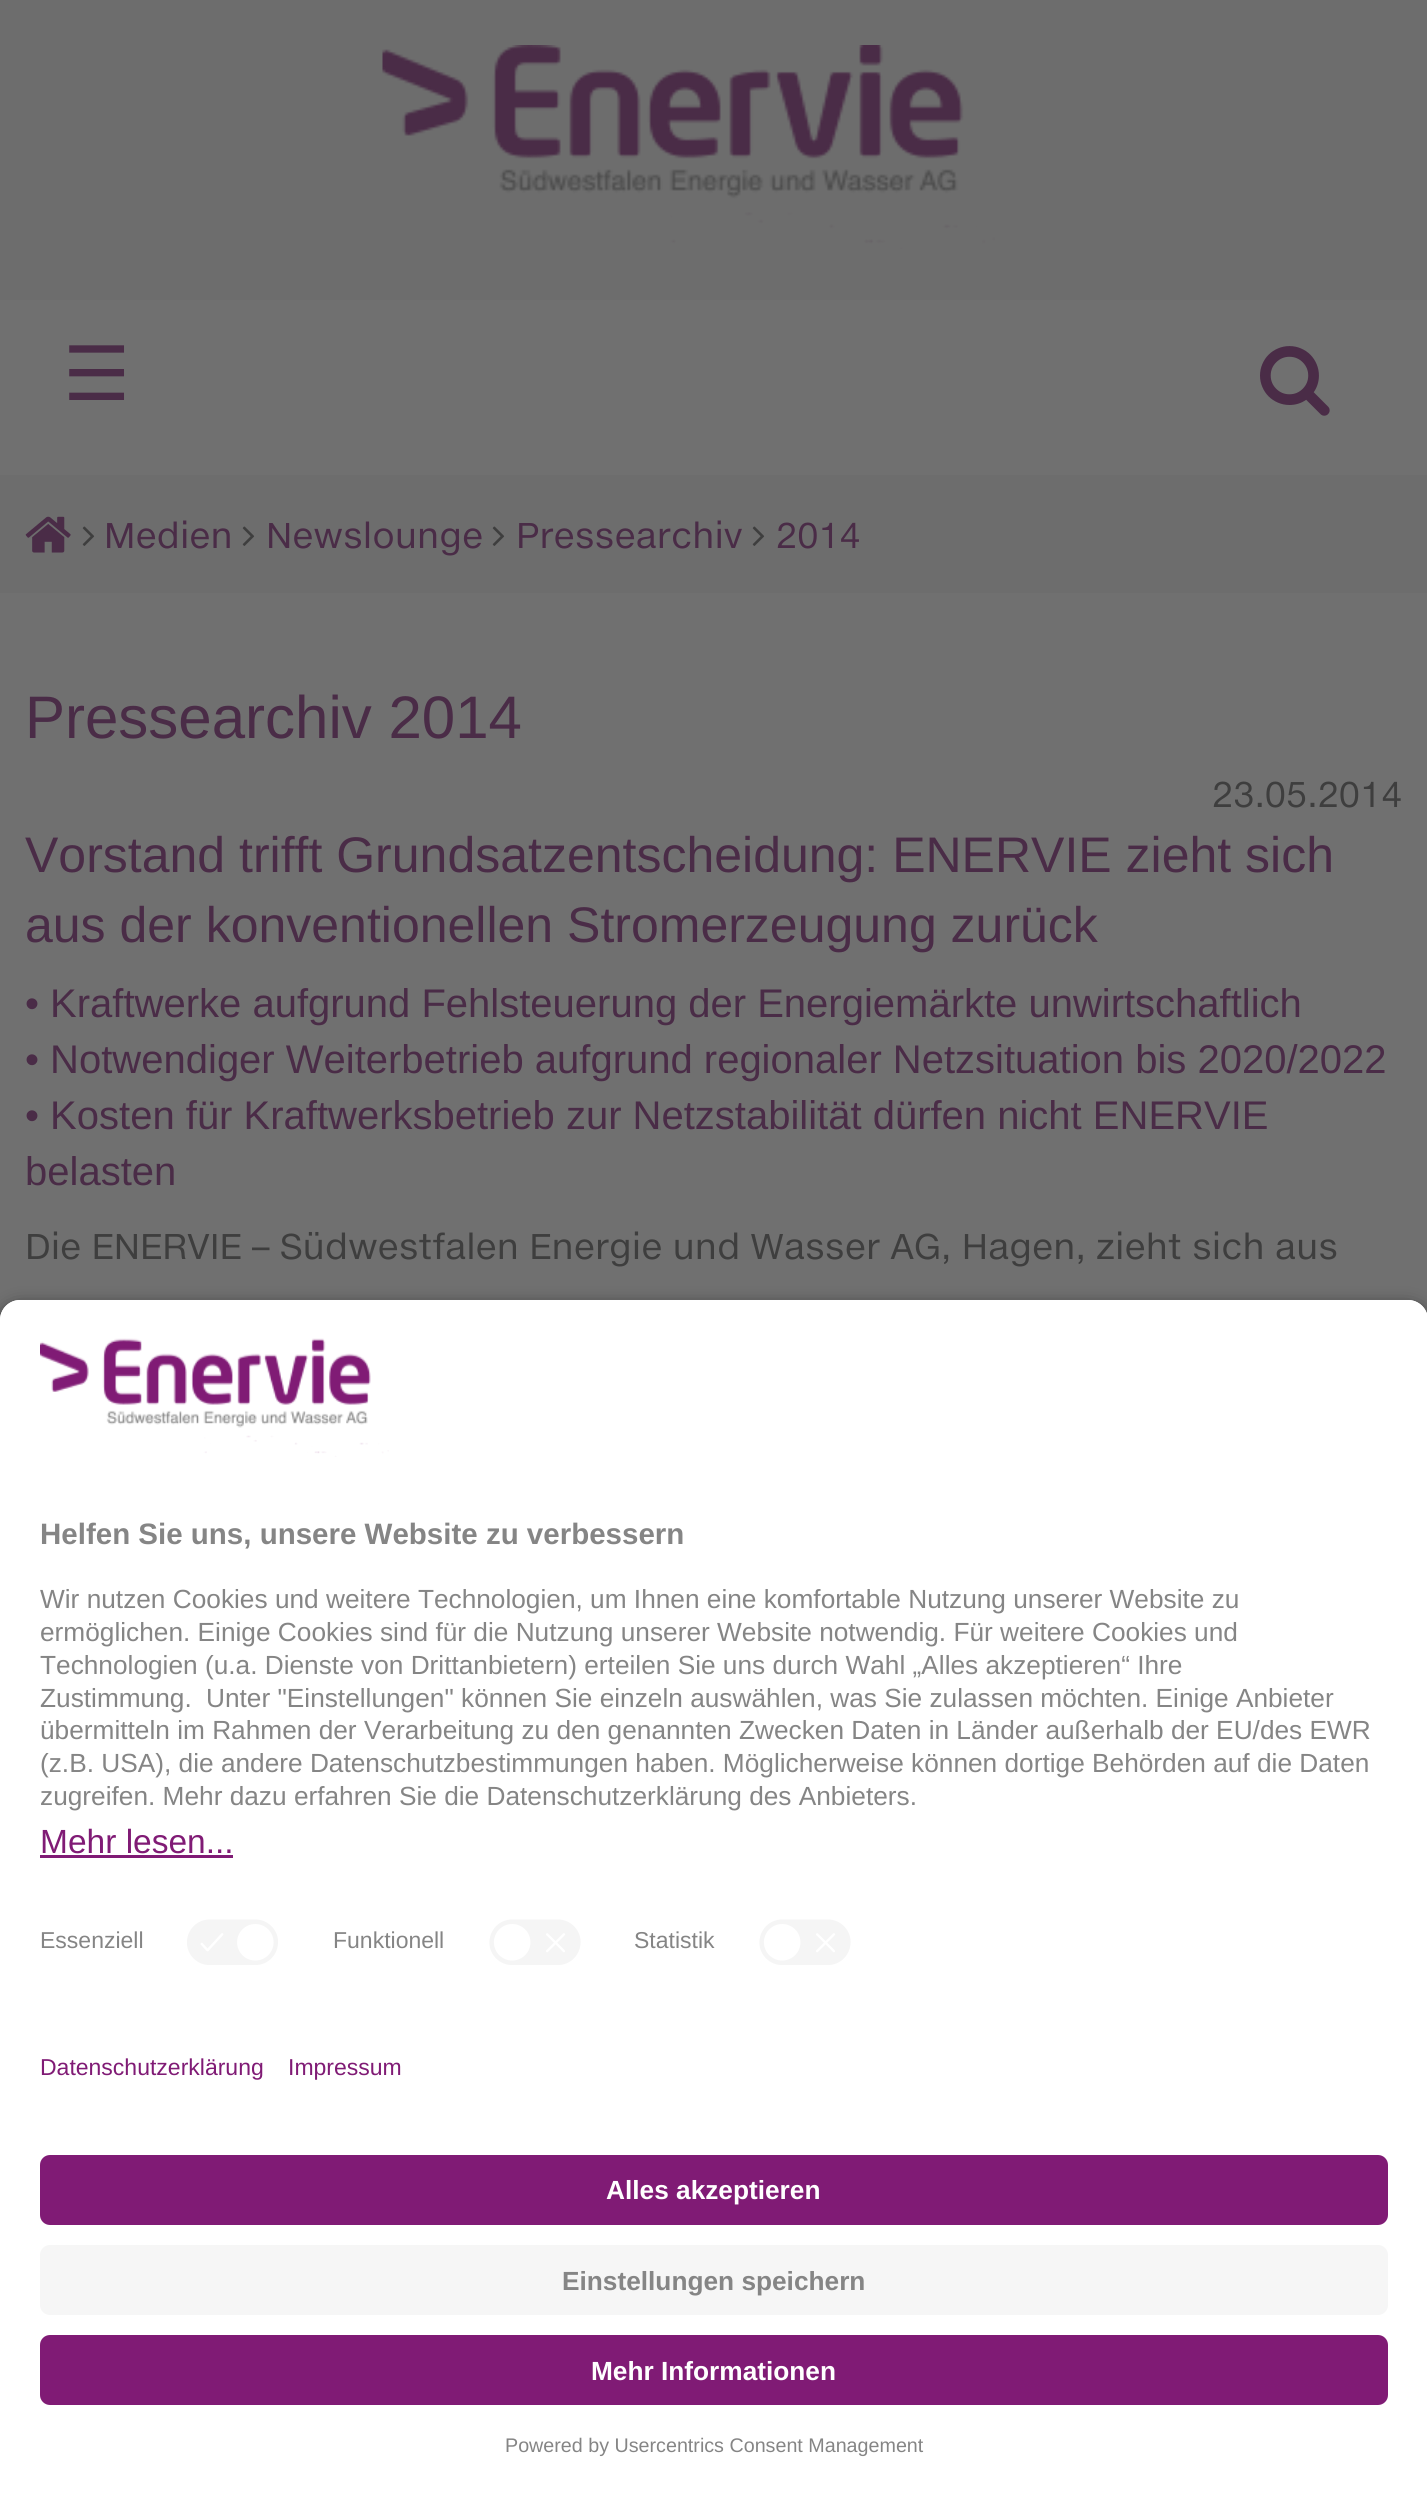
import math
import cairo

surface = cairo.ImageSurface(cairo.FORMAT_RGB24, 1427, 2496)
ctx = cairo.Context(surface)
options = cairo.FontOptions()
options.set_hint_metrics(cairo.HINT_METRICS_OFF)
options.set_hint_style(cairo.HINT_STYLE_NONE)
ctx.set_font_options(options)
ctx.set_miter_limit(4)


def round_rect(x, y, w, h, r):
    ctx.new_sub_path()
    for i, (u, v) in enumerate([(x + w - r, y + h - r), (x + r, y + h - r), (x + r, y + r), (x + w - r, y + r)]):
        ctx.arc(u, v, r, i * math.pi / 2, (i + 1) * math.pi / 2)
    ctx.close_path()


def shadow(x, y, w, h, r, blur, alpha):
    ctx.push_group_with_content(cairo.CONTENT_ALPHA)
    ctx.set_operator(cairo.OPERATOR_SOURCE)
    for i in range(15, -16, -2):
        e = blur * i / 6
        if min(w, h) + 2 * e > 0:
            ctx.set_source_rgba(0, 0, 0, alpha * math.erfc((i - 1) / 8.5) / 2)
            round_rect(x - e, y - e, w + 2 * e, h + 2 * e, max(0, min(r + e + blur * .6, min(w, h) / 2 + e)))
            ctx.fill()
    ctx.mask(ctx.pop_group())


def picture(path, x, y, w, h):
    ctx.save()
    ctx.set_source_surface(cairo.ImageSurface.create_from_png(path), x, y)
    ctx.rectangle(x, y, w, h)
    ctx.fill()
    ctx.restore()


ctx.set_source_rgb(0.439, 0.439, 0.439)
ctx.paint()
ctx.set_source_rgb(0.427, 0.427, 0.427)
ctx.rectangle(0, 0, 1427, 300)
ctx.fill()
picture("img1.png", 382, 45, 613, 204)
ctx.select_font_face("DejaVu Sans")
ctx.set_font_size(75)
ctx.set_source_rgb(0.29, 0.173, 0.278)
ctx.move_to(63, 400)
ctx.show_text("☰")
picture("img2.png", 1260, 346, 70, 70)
ctx.set_source_rgb(0.427, 0.427, 0.427)
ctx.rectangle(0, 475, 1427, 118)
ctx.fill()
picture("img3.png", 25, 516, 46, 37)
picture("img4.png", 82, 526, 13, 20)
ctx.select_font_face("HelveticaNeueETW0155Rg")
ctx.set_font_size(35)
ctx.set_source_rgb(0.29, 0.173, 0.278)
ctx.move_to(104, 548)
ctx.show_text("Medien")
picture("img4.png", 242, 526, 13, 20)
ctx.move_to(266, 548)
ctx.show_text("Newslounge")
picture("img4.png", 492, 526, 13, 20)
ctx.move_to(516, 548)
ctx.show_text("Pressearchiv")
picture("img4.png", 752, 526, 13, 20)
ctx.move_to(776, 548)
ctx.show_text("2014")
ctx.select_font_face("Liberation Sans")
ctx.set_font_size(60)
ctx.move_to(25, 738)
ctx.show_text("Pressearchiv 2014")
ctx.select_font_face("HelveticaNeueETW0155Rg")
ctx.set_font_size(35)
ctx.set_source_rgb(0.243, 0.243, 0.243)
ctx.move_to(1212, 807)
ctx.show_text("23.05.2014")
ctx.select_font_face("Liberation Sans")
ctx.set_font_size(50)
ctx.set_source_rgb(0.29, 0.173, 0.278)
ctx.move_to(25, 872)
ctx.show_text("Vorstand trifft Grundsatzentscheidung: ENERVIE zieht sich")
ctx.move_to(25, 942)
ctx.show_text("aus der konventionellen Stromerzeugung zurück")
ctx.set_font_size(40)
ctx.move_to(25, 1017)
ctx.show_text("• Kraftwerke aufgrund Fehlsteuerung der Energiemärkte unwirtschaftlich")
ctx.move_to(25, 1073)
ctx.show_text("• Notwendiger Weiterbetrieb aufgrund regionaler Netzsituation bis 2020/2022")
ctx.move_to(25, 1129)
ctx.show_text("• Kosten für Kraftwerksbetrieb zur Netzstabilität dürfen nicht ENERVIE")
ctx.move_to(25, 1185)
ctx.show_text("belasten")
ctx.select_font_face("HelveticaNeueETW0155Rg")
ctx.set_font_size(35)
ctx.set_source_rgb(0.243, 0.243, 0.243)
ctx.move_to(25, 1259)
ctx.show_text("Die ENERVIE – Südwestfalen Energie und Wasser AG, Hagen, zieht sich aus")
ctx.set_source_rgb(0, 0, 0)
shadow(0, 1308, 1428, 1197, 20, 9, 0.8)
ctx.set_source_rgb(1, 1, 1)
ctx.new_path()
ctx.move_to(20, 1300)
ctx.line_to(1408, 1300)
ctx.curve_to(1419, 1300, 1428, 1309, 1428, 1320)
ctx.line_to(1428, 2010)
ctx.line_to(0, 2010)
ctx.line_to(0, 1320)
ctx.curve_to(0, 1309, 9, 1300, 20, 1300)
ctx.close_path()
ctx.fill()
ctx.new_path()
ctx.move_to(20, 1300)
ctx.line_to(1408, 1300)
ctx.curve_to(1419, 1300, 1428, 1309, 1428, 1320)
ctx.line_to(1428, 1900)
ctx.line_to(0, 1900)
ctx.line_to(0, 1320)
ctx.curve_to(0, 1309, 9, 1300, 20, 1300)
ctx.close_path()
ctx.fill()
picture("img5.png", 40, 1338, 349, 119)
ctx.select_font_face("Liberation Sans", cairo.FONT_SLANT_NORMAL, cairo.FONT_WEIGHT_BOLD)
ctx.set_font_size(29.5)
ctx.set_source_rgb(0.522, 0.522, 0.522)
ctx.move_to(40, 1544)
ctx.show_text("Helfen Sie uns, unsere Website zu verbessern")
ctx.select_font_face("Liberation Sans")
ctx.set_font_size(26.25)
ctx.move_to(40, 1608)
ctx.show_text("Wir nutzen Cookies und weitere Technologien, um Ihnen eine komfortable Nutzung unserer Website zu")
ctx.move_to(40, 1641)
ctx.show_text("ermöglichen. Einige Cookies sind für die Nutzung unserer Website notwendig. Für weitere Cookies und")
ctx.move_to(40, 1674)
ctx.show_text("Technologien (u.a. Dienste von Drittanbietern) erteilen Sie uns durch Wahl „Alles akzeptieren“ Ihre")
ctx.move_to(40, 1707)
ctx.show_text("Zustimmung.")
ctx.move_to(206, 1707)
ctx.show_text("Unter \"Einstellungen\" können Sie einzeln auswählen, was Sie zulassen möchten. Einige Anbieter")
ctx.move_to(40, 1739)
ctx.show_text("übermitteln im Rahmen der Verarbeitung zu den genannten Zwecken Daten in Länder außerhalb der EU/des EWR")
ctx.move_to(40, 1772)
ctx.show_text("(z.B. USA), die andere Datenschutzbestimmungen haben. Möglicherweise können dortige Behörden auf die Daten")
ctx.move_to(40, 1805)
ctx.show_text("zugreifen. Mehr dazu erfahren Sie die Datenschutzerklärung des Anbieters.")
ctx.set_font_size(33.5)
ctx.set_source_rgb(0.502, 0.106, 0.459)
ctx.move_to(40, 1853)
ctx.show_text("Mehr lesen...")
ctx.rectangle(40, 1855, 193, 3)
ctx.fill()
ctx.set_font_size(23)
ctx.set_source_rgb(0.522, 0.522, 0.522)
ctx.move_to(40, 1948)
ctx.show_text("Essenziell")
picture("img6.png", 187, 1919, 91, 46)
ctx.move_to(333, 1948)
ctx.show_text("Funktionell")
picture("img7.png", 489, 1919, 92, 46)
ctx.move_to(634, 1948)
ctx.show_text("Statistik")
picture("img7.png", 759, 1919, 92, 46)
ctx.set_source_rgb(1, 1, 1)
ctx.rectangle(0, 2010, 1427, 486)
ctx.fill()
ctx.set_source_rgb(0.502, 0.106, 0.459)
ctx.move_to(40, 2075)
ctx.show_text("Datenschutzerklärung")
ctx.move_to(288, 2075)
ctx.show_text("Impressum")
round_rect(40, 2155, 1348, 70, 10)
ctx.fill()
ctx.select_font_face("Liberation Sans", cairo.FONT_SLANT_NORMAL, cairo.FONT_WEIGHT_BOLD)
ctx.set_font_size(26.25)
ctx.set_source_rgb(1, 1, 1)
ctx.move_to(606, 2199)
ctx.show_text("Alles akzeptieren")
ctx.set_source_rgb(0.961, 0.961, 0.961)
round_rect(40, 2245, 1348, 70, 10)
ctx.fill()
ctx.set_source_rgb(0.522, 0.522, 0.522)
ctx.move_to(562, 2290)
ctx.show_text("Einstellungen speichern")
ctx.set_source_rgb(0.502, 0.106, 0.459)
round_rect(40, 2335, 1348, 70, 10)
ctx.fill()
ctx.set_source_rgb(1, 1, 1)
ctx.move_to(591, 2380)
ctx.show_text("Mehr Informationen")
ctx.select_font_face("Liberation Sans")
ctx.set_font_size(19.7)
ctx.set_source_rgb(0.522, 0.522, 0.522)
ctx.move_to(505, 2452)
ctx.show_text("Powered by Usercentrics Consent Management")
surface.write_to_png("page.png")
